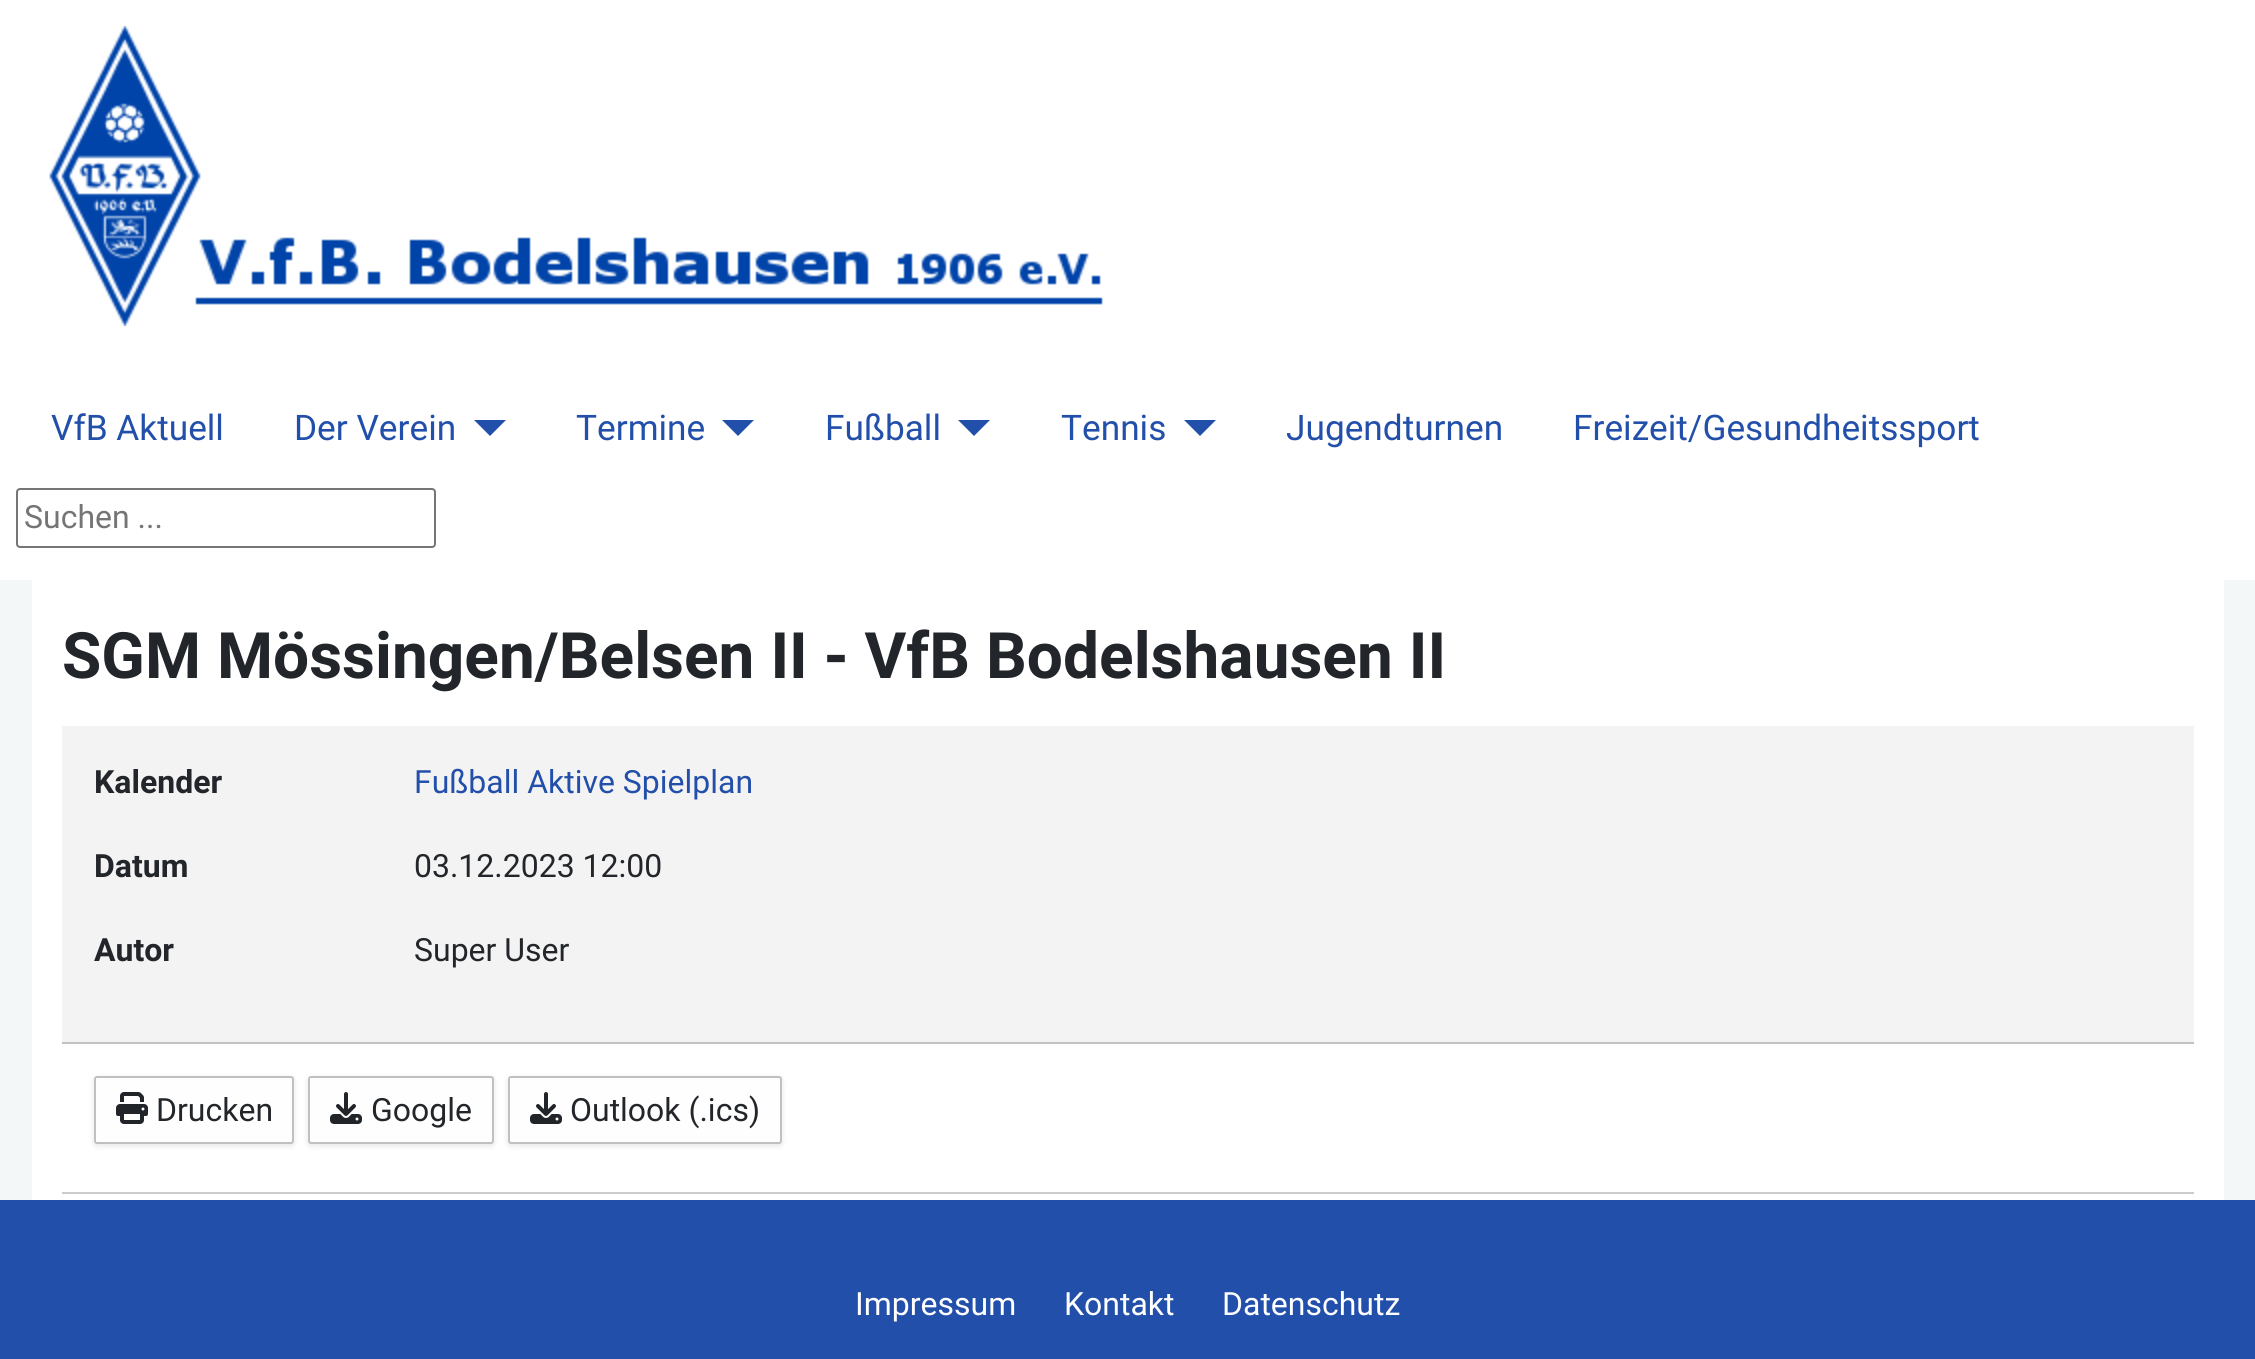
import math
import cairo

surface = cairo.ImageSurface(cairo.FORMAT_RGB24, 2255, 1359)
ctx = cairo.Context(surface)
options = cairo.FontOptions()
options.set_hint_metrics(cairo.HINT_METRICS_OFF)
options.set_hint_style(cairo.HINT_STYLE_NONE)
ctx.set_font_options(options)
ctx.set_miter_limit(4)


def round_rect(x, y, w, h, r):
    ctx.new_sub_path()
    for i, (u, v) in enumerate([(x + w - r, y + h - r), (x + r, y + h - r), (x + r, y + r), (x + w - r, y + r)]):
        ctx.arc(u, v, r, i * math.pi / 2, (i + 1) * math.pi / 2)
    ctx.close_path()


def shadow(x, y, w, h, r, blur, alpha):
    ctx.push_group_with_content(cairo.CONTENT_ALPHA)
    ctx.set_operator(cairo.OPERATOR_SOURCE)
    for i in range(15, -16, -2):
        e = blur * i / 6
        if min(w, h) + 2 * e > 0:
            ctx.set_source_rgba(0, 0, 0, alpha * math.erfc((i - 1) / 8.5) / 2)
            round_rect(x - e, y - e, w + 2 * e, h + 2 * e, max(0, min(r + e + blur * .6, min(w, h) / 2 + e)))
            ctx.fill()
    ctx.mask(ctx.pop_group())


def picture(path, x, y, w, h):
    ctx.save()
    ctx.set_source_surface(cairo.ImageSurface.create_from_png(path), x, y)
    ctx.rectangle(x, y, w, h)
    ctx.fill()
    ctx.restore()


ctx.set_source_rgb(0.957, 0.965, 0.969)
ctx.paint()
ctx.set_source_rgb(1, 1, 1)
ctx.rectangle(0, 0, 2255, 580)
ctx.fill()
picture("img1.png", 49, 26, 1054, 300)
ctx.select_font_face("Roboto")
ctx.set_font_size(35.25)
ctx.set_source_rgb(0.133, 0.31, 0.667)
ctx.move_to(51, 440)
ctx.show_text("VfB Aktuell")
ctx.move_to(294, 440)
ctx.show_text("Der Verein")
ctx.new_path()
ctx.move_to(474, 420)
ctx.line_to(506, 420)
ctx.line_to(490, 436)
ctx.close_path()
ctx.fill()
ctx.move_to(576, 440)
ctx.show_text("Termine")
ctx.new_path()
ctx.move_to(722, 420)
ctx.line_to(754, 420)
ctx.line_to(738, 436)
ctx.close_path()
ctx.fill()
ctx.move_to(825, 440)
ctx.show_text("Fußball")
ctx.new_path()
ctx.move_to(958, 420)
ctx.line_to(990, 420)
ctx.line_to(974, 436)
ctx.close_path()
ctx.fill()
ctx.move_to(1061, 440)
ctx.show_text("Tennis")
ctx.new_path()
ctx.move_to(1184, 420)
ctx.line_to(1216, 420)
ctx.line_to(1200, 436)
ctx.close_path()
ctx.fill()
ctx.move_to(1286, 440)
ctx.show_text("Jugendturnen")
ctx.move_to(1573, 440)
ctx.show_text("Freizeit/Gesundheitssport")
round_rect(17, 489, 418, 58, 3)
ctx.set_source_rgb(0.463, 0.463, 0.463)
ctx.stroke()
ctx.set_font_size(32)
ctx.set_source_rgb(0.459, 0.459, 0.459)
ctx.move_to(24, 528)
ctx.show_text("Suchen ...")
ctx.set_source_rgb(1, 1, 1)
ctx.rectangle(32, 580, 2192, 620)
ctx.fill()
ctx.select_font_face("Roboto", cairo.FONT_SLANT_NORMAL, cairo.FONT_WEIGHT_BOLD)
ctx.set_font_size(64)
ctx.set_source_rgb(0.133, 0.149, 0.165)
ctx.move_to(62, 678)
ctx.show_text("SGM Mössingen/Belsen II - VfB Bodelshausen II")
ctx.set_source_rgb(0.953, 0.953, 0.953)
ctx.rectangle(62, 726, 2132, 316)
ctx.fill()
ctx.set_source_rgb(0.761, 0.761, 0.761)
ctx.rectangle(62, 1042, 2132, 2)
ctx.fill()
ctx.set_font_size(32)
ctx.set_source_rgb(0.133, 0.149, 0.165)
ctx.move_to(94, 793)
ctx.show_text("Kalender")
ctx.select_font_face("Roboto")
ctx.set_source_rgb(0.133, 0.31, 0.667)
ctx.move_to(414, 793)
ctx.show_text("Fußball Aktive Spielplan")
ctx.select_font_face("Roboto", cairo.FONT_SLANT_NORMAL, cairo.FONT_WEIGHT_BOLD)
ctx.set_source_rgb(0.133, 0.149, 0.165)
ctx.move_to(94, 877)
ctx.show_text("Datum")
ctx.select_font_face("Roboto")
ctx.move_to(414, 877)
ctx.show_text("03.12.2023 12:00")
ctx.select_font_face("Roboto", cairo.FONT_SLANT_NORMAL, cairo.FONT_WEIGHT_BOLD)
ctx.move_to(94, 961)
ctx.show_text("Autor")
ctx.select_font_face("Roboto")
ctx.move_to(414, 961)
ctx.show_text("Super User")
ctx.set_source_rgb(0.8, 0.8, 0.8)
ctx.rectangle(62, 1192, 2132, 2)
ctx.fill()
ctx.set_source_rgb(0, 0, 0)
shadow(94, 1078, 200, 68, 3, 3, 0.1)
ctx.set_source_rgb(0.996, 0.996, 0.996)
round_rect(95, 1077, 198, 66, 2)
ctx.fill_preserve()
ctx.set_source_rgb(0.753, 0.753, 0.753)
ctx.stroke()
picture("img2.png", 116, 1092, 32, 32)
ctx.set_source_rgb(0.133, 0.149, 0.165)
ctx.move_to(156, 1121)
ctx.show_text("Drucken")
ctx.set_source_rgb(0, 0, 0)
shadow(308, 1078, 186, 68, 3, 3, 0.1)
ctx.set_source_rgb(0.996, 0.996, 0.996)
round_rect(309, 1077, 184, 66, 2)
ctx.fill_preserve()
ctx.set_source_rgb(0.753, 0.753, 0.753)
ctx.stroke()
picture("img3.png", 330, 1092, 32, 32)
ctx.set_source_rgb(0.133, 0.149, 0.165)
ctx.move_to(371, 1121)
ctx.show_text("Google")
ctx.set_source_rgb(0, 0, 0)
shadow(508, 1078, 274, 68, 3, 3, 0.1)
ctx.set_source_rgb(0.996, 0.996, 0.996)
round_rect(509, 1077, 272, 66, 2)
ctx.fill_preserve()
ctx.set_source_rgb(0.753, 0.753, 0.753)
ctx.stroke()
picture("img3.png", 530, 1092, 32, 32)
ctx.set_source_rgb(0.133, 0.149, 0.165)
ctx.move_to(570, 1121)
ctx.show_text("Outlook (.ics)")
ctx.set_source_rgb(0.133, 0.31, 0.667)
ctx.rectangle(0, 1200, 2255, 159)
ctx.fill()
ctx.set_source_rgb(1, 1, 1)
ctx.move_to(855, 1315)
ctx.show_text("Impressum")
ctx.move_to(1064, 1315)
ctx.show_text("Kontakt")
ctx.move_to(1222, 1315)
ctx.show_text("Datenschutz")
surface.write_to_png("page.png")
